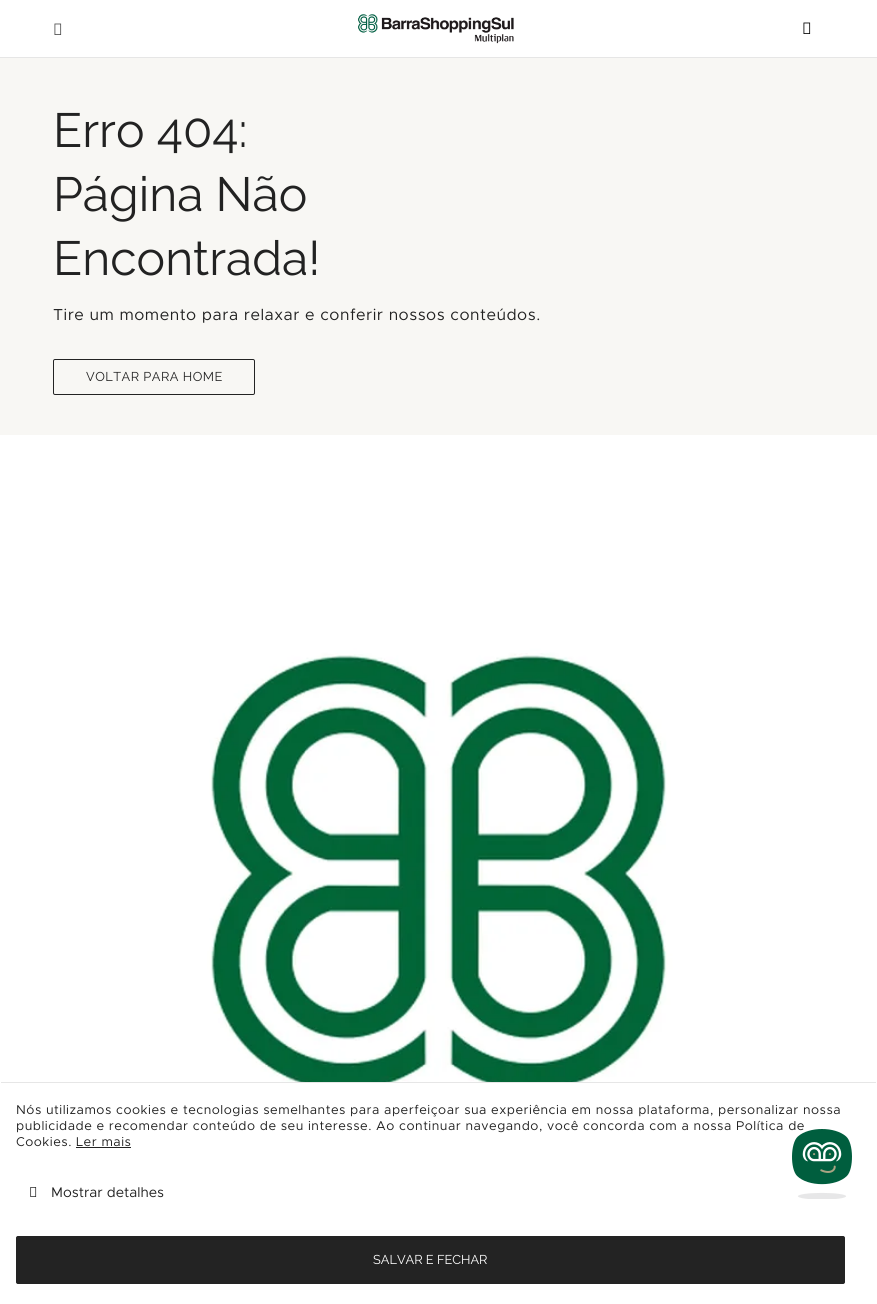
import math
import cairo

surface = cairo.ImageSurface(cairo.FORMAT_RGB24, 877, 1304)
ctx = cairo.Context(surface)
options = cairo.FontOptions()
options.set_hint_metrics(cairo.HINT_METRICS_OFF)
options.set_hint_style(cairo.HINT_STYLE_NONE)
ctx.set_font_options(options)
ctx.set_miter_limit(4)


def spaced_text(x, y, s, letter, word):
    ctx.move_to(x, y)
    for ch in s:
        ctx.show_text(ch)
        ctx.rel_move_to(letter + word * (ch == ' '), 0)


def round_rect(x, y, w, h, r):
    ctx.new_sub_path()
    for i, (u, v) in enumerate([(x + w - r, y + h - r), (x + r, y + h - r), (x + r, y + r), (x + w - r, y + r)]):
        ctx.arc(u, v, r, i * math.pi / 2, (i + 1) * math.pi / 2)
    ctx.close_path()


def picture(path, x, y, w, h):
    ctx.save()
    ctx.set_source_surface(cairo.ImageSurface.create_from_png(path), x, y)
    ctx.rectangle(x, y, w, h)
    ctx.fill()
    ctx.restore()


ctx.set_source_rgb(0.969, 0.965, 0.957)
ctx.paint()
ctx.set_source_rgb(1, 1, 1)
ctx.rectangle(0, 0, 877, 57)
ctx.fill()
ctx.set_source_rgb(0.902, 0.902, 0.902)
ctx.rectangle(0, 57, 877, 1)
ctx.fill()
picture("img1.png", 54, 23, 8, 12)
picture("img2.png", 358, 14, 156, 30)
picture("img3.png", 803, 22, 8, 12)
ctx.select_font_face("Raleway")
ctx.set_font_size(48)
ctx.set_source_rgb(0.133, 0.133, 0.133)
ctx.move_to(53, 147)
ctx.show_text("Erro 404:")
ctx.move_to(53, 211)
ctx.show_text("Página Não")
ctx.move_to(53, 275)
ctx.show_text("Encontrada!")
ctx.select_font_face("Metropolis")
ctx.set_font_size(16)
spaced_text(53, 320, "Tire um momento para relaxar e conferir nossos conteúdos.", 0.5, 0)
round_rect(53.5, 359.5, 201, 35, 1.5)
ctx.set_source_rgb(0.137, 0.137, 0.137)
ctx.set_line_width(1)
ctx.stroke()
ctx.select_font_face("Raleway")
ctx.set_font_size(12.8)
ctx.set_source_rgb(0.133, 0.133, 0.133)
spaced_text(86, 381, "VOLTAR PARA HOME", 0.5, 0)
picture("img4.png", 0, 435, 877, 869)
ctx.set_source_rgb(1, 1, 1)
round_rect(0, 1082, 877, 222, 2)
ctx.fill()
ctx.set_source_rgb(0.902, 0.902, 0.902)
ctx.rectangle(1, 1082, 875, 1)
ctx.fill()
ctx.select_font_face("Metropolis")
ctx.set_source_rgb(0.133, 0.133, 0.133)
spaced_text(16, 1114, "Nós utilizamos cookies e tecnologias semelhantes para aperfeiçoar sua experiência em nossa plataforma, personalizar nossa", 0.5, 0)
spaced_text(16, 1130, "publicidade e recomendar conteúdo de seu interesse. Ao continuar navegando, você concorda com a nossa Política de", 0.5, 0)
spaced_text(16, 1146, "Cookies.", 0.5, 0)
spaced_text(76, 1146, "Ler mais", 0.5, 0)
ctx.rectangle(76, 1147, 55, 1)
ctx.fill()
picture("img5.png", 30, 1187, 7, 10)
ctx.set_font_size(14)
ctx.move_to(51, 1197)
ctx.show_text("Mostrar detalhes")
ctx.set_source_rgb(0.137, 0.137, 0.137)
round_rect(16.5, 1236.5, 828, 47, 1.5)
ctx.fill_preserve()
ctx.stroke()
ctx.select_font_face("Raleway")
ctx.set_font_size(12.8)
ctx.set_source_rgb(1, 1, 1)
ctx.move_to(373, 1264)
ctx.show_text("SALVAR E FECHAR")
picture("img6.png", 792, 1129, 60, 70)
surface.write_to_png("page.png")
